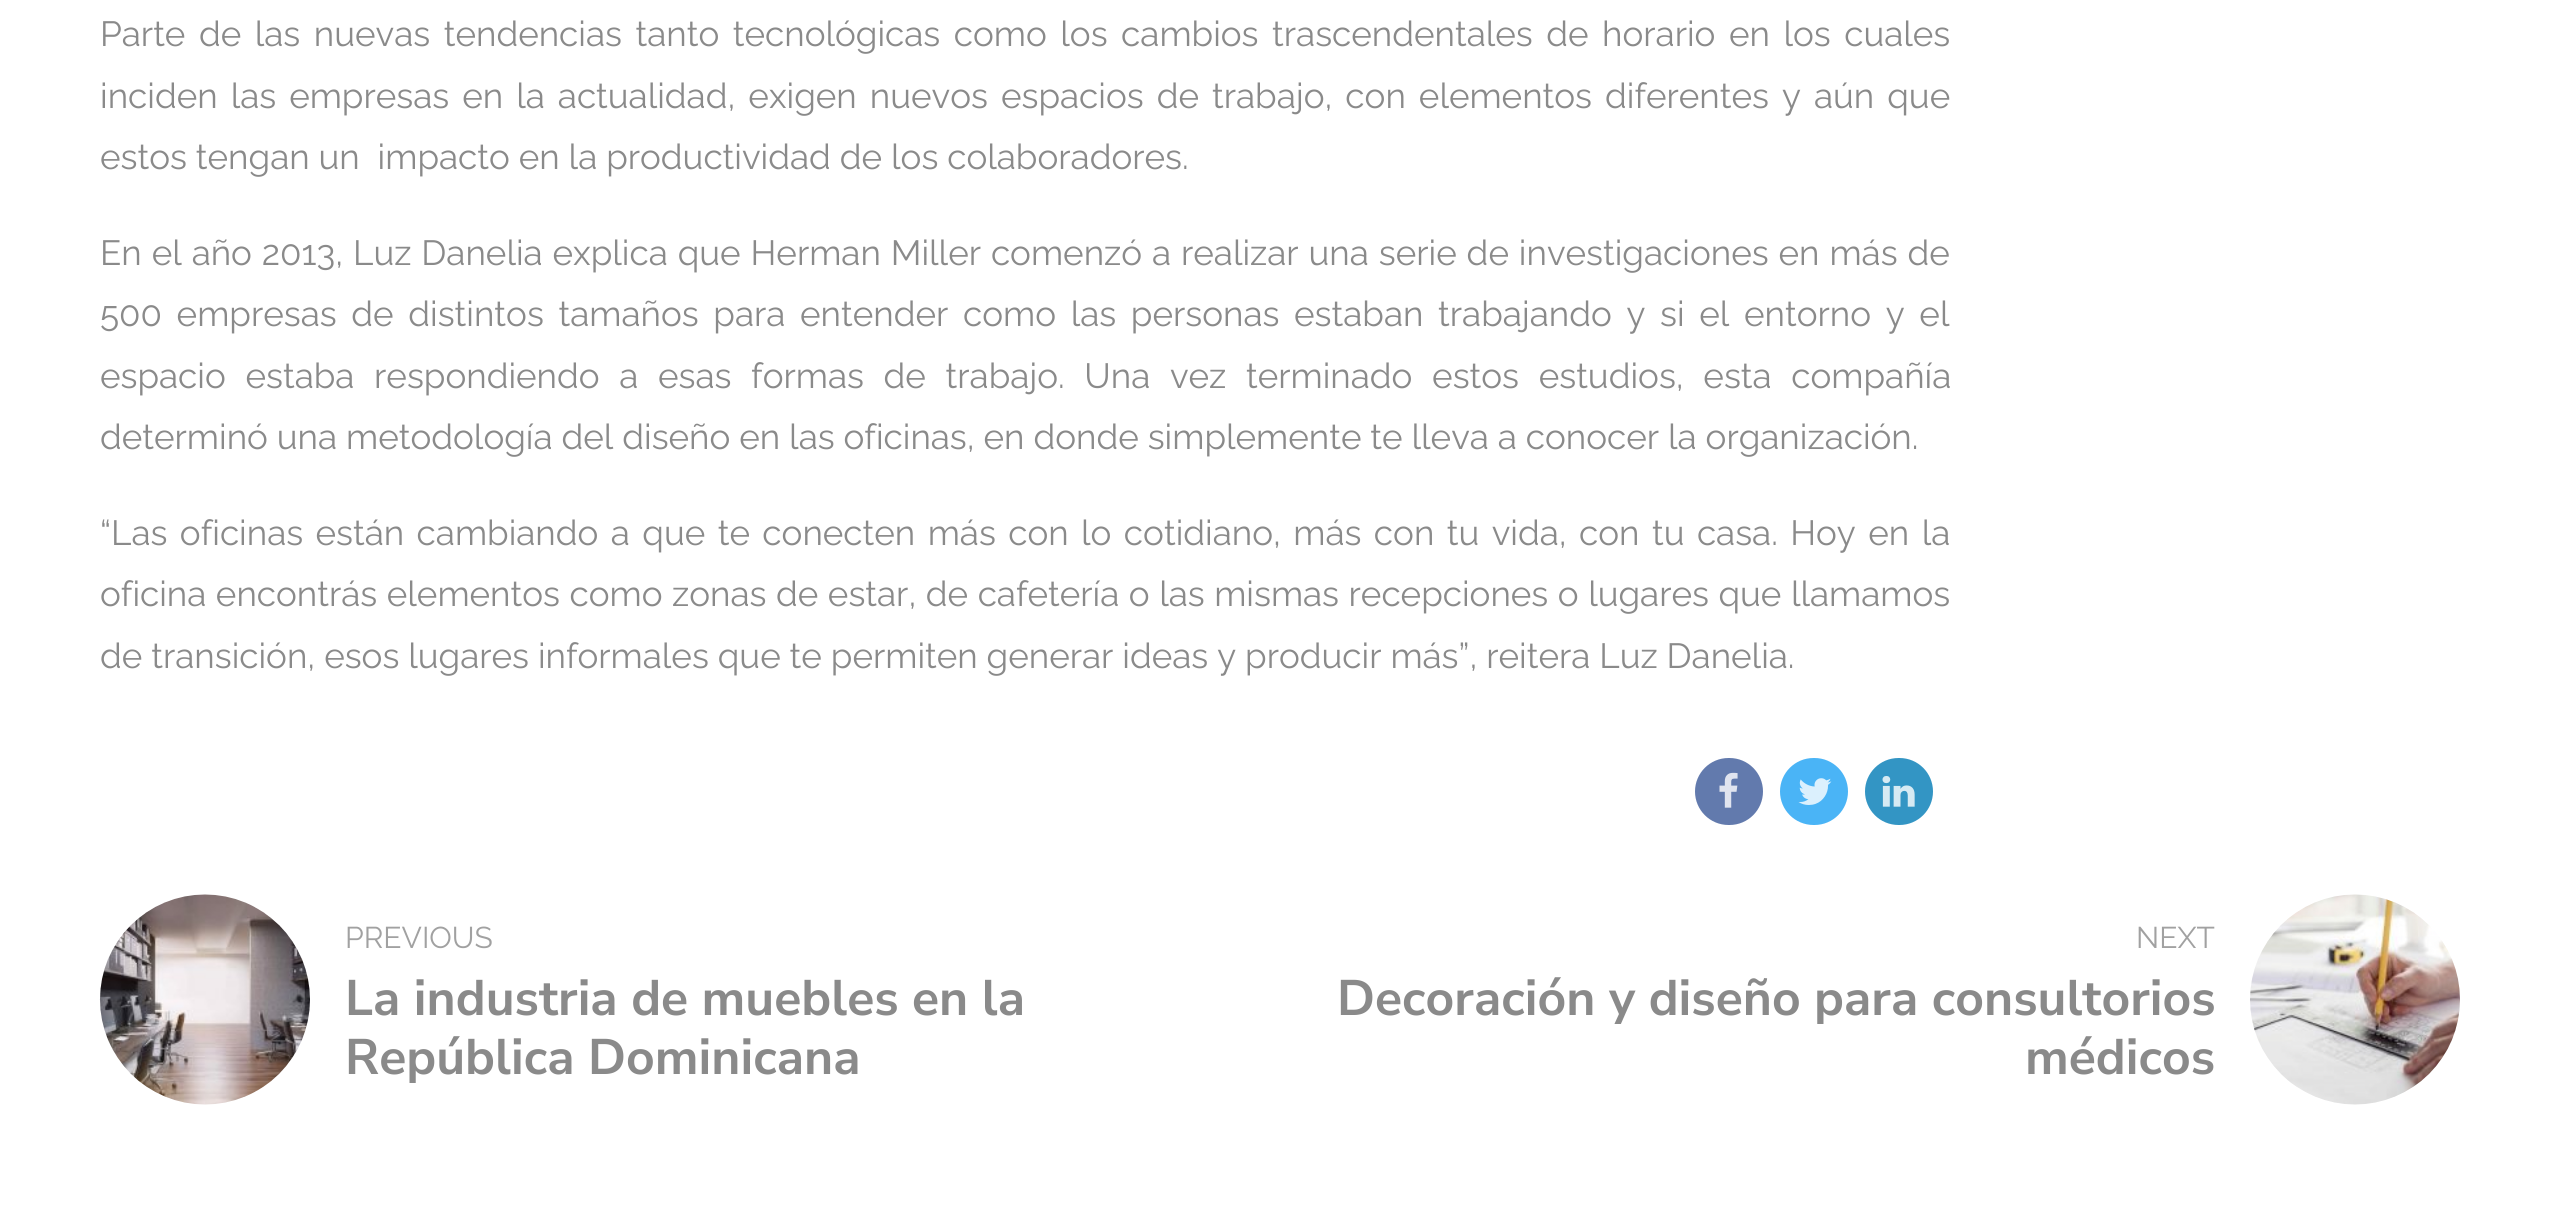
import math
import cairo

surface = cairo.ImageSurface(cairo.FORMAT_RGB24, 2558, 1207)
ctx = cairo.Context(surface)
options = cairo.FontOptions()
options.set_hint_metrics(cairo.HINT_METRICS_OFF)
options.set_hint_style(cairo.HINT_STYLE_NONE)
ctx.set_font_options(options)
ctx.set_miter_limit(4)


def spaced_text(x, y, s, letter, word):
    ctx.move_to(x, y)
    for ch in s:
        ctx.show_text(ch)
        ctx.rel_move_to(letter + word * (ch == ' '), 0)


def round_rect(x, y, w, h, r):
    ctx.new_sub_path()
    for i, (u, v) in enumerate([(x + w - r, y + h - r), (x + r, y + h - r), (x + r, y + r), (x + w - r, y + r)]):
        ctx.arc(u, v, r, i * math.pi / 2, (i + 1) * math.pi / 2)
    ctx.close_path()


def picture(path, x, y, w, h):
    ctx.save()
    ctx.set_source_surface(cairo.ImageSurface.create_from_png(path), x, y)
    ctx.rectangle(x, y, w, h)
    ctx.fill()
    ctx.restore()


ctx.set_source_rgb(1, 1, 1)
ctx.paint()
ctx.select_font_face("Raleway")
ctx.set_font_size(35)
ctx.set_source_rgb(0.541, 0.541, 0.541)
spaced_text(100, 46, "Parte de las nuevas tendencias tanto tecnológicas como los cambios trascendentales de horario en los cuales", 0, 4.6)
spaced_text(100, 108, "inciden las empresas en la actualidad, exigen nuevos espacios de trabajo, con elementos diferentes y aún que", 0, 4.1)
ctx.move_to(100, 169)
ctx.show_text("estos tengan un  impacto en la productividad de los colaboradores.")
spaced_text(100, 265, "En el año 2013, Luz Danelia explica que Herman Miller comenzó a realizar una serie de investigaciones en más de", 0, 1)
spaced_text(100, 326, "500 empresas de distintos tamaños para entender como las personas estaban trabajando y si el entorno y el", 0, 5.75)
spaced_text(100, 388, "espacio estaba respondiendo a esas formas de trabajo. Una vez terminado estos estudios, esta compañía", 0, 10.75)
ctx.move_to(100, 449)
ctx.show_text("determinó una metodología del diseño en las oficinas, en donde simplemente te lleva a conocer la organización.")
spaced_text(100, 545, "“Las oficinas están cambiando a que te conecten más con lo cotidiano, más con tu vida, con tu casa. Hoy en la", 0, 3.5)
spaced_text(100, 606, "oficina encontrás elementos como zonas de estar, de cafetería o las mismas recepciones o lugares que llamamos", 0, 0.6)
ctx.move_to(100, 668)
ctx.show_text("de transición, esos lugares informales que te permiten generar ideas y producir más”, reitera Luz Danelia.")
ctx.set_source_rgb(0.384, 0.478, 0.678)
round_rect(1695, 758, 68, 67, 33.5)
ctx.fill()
picture("img1.png", 1719, 772, 19, 36)
ctx.set_source_rgb(0.29, 0.706, 0.961)
round_rect(1780, 758, 68, 67, 33.5)
ctx.fill()
picture("img2.png", 1798, 778, 34, 27)
ctx.set_source_rgb(0.2, 0.584, 0.769)
round_rect(1865, 758, 68, 67, 33.5)
ctx.fill()
picture("img3.png", 1882, 776, 33, 31)
picture("img4.png", 99, 894, 211, 211)
ctx.set_font_size(30)
ctx.set_source_rgb(0.631, 0.631, 0.631)
ctx.move_to(345, 948)
ctx.show_text("PREVIOUS")
ctx.select_font_face("Nunito Sans", cairo.FONT_SLANT_NORMAL, cairo.FONT_WEIGHT_BOLD)
ctx.set_font_size(49.9)
ctx.set_source_rgb(0.541, 0.541, 0.541)
ctx.move_to(345, 1015)
ctx.show_text("La industria de muebles en la")
ctx.move_to(345, 1074)
ctx.show_text("República Dominicana")
ctx.select_font_face("Raleway")
ctx.set_font_size(30)
ctx.set_source_rgb(0.631, 0.631, 0.631)
ctx.move_to(2136, 948)
ctx.show_text("NEXT")
ctx.select_font_face("Nunito Sans", cairo.FONT_SLANT_NORMAL, cairo.FONT_WEIGHT_BOLD)
ctx.set_font_size(49.9)
ctx.set_source_rgb(0.541, 0.541, 0.541)
ctx.move_to(1337, 1015)
ctx.show_text("Decoración y diseño para consultorios")
ctx.move_to(2025, 1074)
ctx.show_text("médicos")
picture("img5.png", 2250, 894, 210, 211)
surface.write_to_png("page.png")
